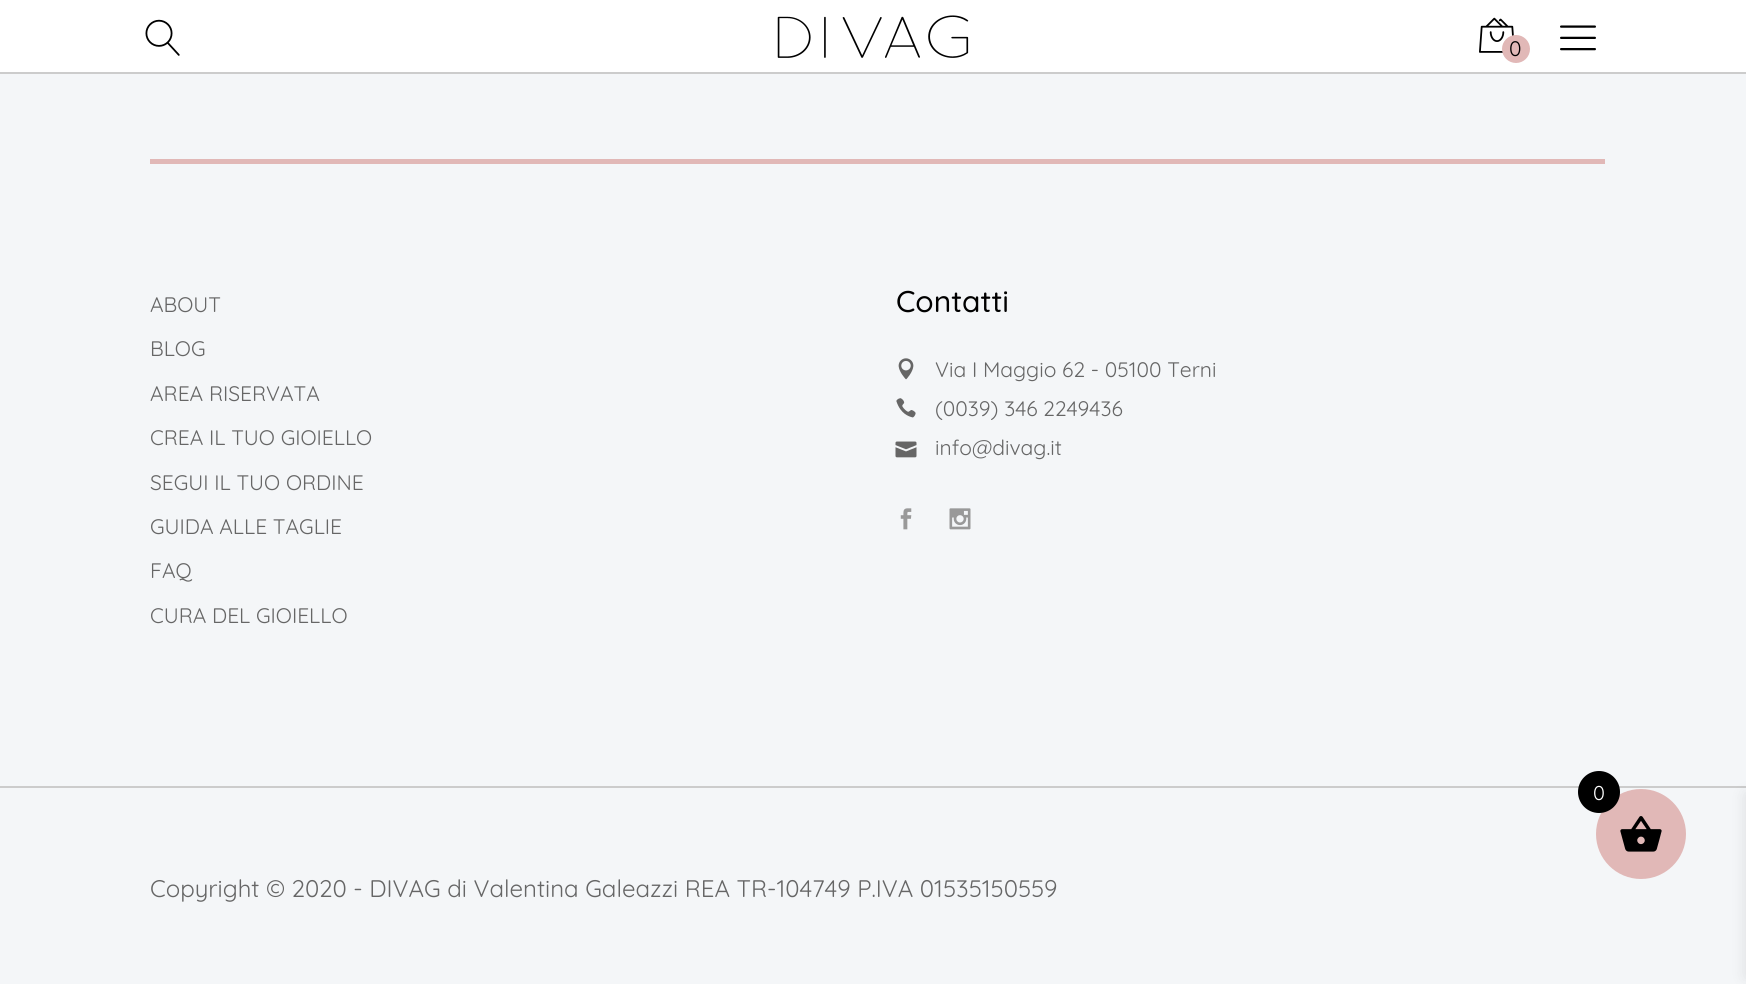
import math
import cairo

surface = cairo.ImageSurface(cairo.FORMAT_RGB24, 1746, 984)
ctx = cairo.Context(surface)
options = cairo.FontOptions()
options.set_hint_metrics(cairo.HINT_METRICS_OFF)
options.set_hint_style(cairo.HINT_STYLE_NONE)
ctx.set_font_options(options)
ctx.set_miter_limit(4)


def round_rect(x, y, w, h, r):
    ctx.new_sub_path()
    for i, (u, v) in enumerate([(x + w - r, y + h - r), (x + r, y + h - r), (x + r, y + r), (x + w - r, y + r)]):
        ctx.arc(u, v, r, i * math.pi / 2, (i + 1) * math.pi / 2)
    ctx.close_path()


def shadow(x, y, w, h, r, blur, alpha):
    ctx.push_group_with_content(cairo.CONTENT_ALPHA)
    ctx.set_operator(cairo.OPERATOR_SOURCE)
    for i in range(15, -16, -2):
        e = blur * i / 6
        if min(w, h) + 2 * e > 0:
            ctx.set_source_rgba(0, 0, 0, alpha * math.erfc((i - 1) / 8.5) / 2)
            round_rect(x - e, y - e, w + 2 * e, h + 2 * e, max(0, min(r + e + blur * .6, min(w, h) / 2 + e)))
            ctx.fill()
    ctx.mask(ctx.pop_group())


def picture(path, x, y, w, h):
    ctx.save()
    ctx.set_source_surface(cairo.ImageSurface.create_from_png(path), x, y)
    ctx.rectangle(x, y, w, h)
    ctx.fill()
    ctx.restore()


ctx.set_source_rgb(0.957, 0.961, 0.969)
ctx.paint()
ctx.set_source_rgb(1, 1, 1)
ctx.rectangle(0, 0, 1746, 72)
ctx.fill()
ctx.set_source_rgb(0.8, 0.8, 0.8)
ctx.rectangle(0, 72, 1746, 2)
ctx.fill()
picture("img1.png", 145, 19, 35, 37)
picture("img2.png", 777, 15, 192, 43)
picture("img3.png", 1479, 17, 35, 36)
ctx.set_source_rgb(0.882, 0.722, 0.718)
ctx.arc(1516, 49, 14, 0, 2 * math.pi)
ctx.fill()
ctx.select_font_face("Quicksand")
ctx.set_font_size(21)
ctx.set_source_rgb(0, 0, 0)
ctx.move_to(1509, 56)
ctx.show_text("0")
picture("img4.png", 1560, 25, 36, 26)
ctx.set_source_rgb(0.882, 0.722, 0.718)
ctx.rectangle(150, 159, 1455, 5)
ctx.fill()
ctx.set_source_rgb(0.4, 0.4, 0.4)
ctx.move_to(150, 312)
ctx.show_text("ABOUT")
ctx.move_to(150, 356)
ctx.show_text("BLOG")
ctx.move_to(150, 401)
ctx.show_text("AREA RISERVATA")
ctx.move_to(150, 445)
ctx.show_text("CREA IL TUO GIOIELLO")
ctx.move_to(150, 490)
ctx.show_text("SEGUI IL TUO ORDINE")
ctx.move_to(150, 534)
ctx.show_text("GUIDA ALLE TAGLIE")
ctx.move_to(150, 578)
ctx.show_text("FAQ")
ctx.move_to(150, 623)
ctx.show_text("CURA DEL GIOIELLO")
ctx.select_font_face("Quicksand Medium")
ctx.set_font_size(30)
ctx.set_source_rgb(0, 0, 0)
ctx.move_to(896, 312)
ctx.show_text("Contatti")
picture("img5.png", 898, 358, 16, 22)
ctx.select_font_face("Quicksand")
ctx.set_font_size(21)
ctx.set_source_rgb(0.4, 0.4, 0.4)
ctx.move_to(935, 377)
ctx.show_text("Via I Maggio 62 - 05100 Terni")
picture("img6.png", 896, 398, 20, 20)
ctx.move_to(935, 416)
ctx.show_text("(0039) 346 2249436")
picture("img7.png", 895, 441, 22, 17)
ctx.move_to(935, 455)
ctx.show_text("info@divag.it")
picture("img8.png", 900, 508, 12, 22)
picture("img9.png", 949, 508, 22, 22)
ctx.set_source_rgb(0.8, 0.8, 0.8)
ctx.rectangle(0, 786, 1746, 2)
ctx.fill()
ctx.set_font_size(24)
ctx.set_source_rgb(0.4, 0.4, 0.4)
ctx.move_to(150, 897)
ctx.show_text("Copyright © 2020 - DIVAG di Valentina Galeazzi REA TR-104749 P.IVA 01535150559")
ctx.set_source_rgb(0.882, 0.722, 0.718)
ctx.new_path()
ctx.arc(1641, 834, 45, 0, 2 * math.pi)
ctx.fill()
ctx.set_source_rgb(0, 0, 0)
ctx.arc(1599, 792, 21, 0, 2 * math.pi)
ctx.fill()
ctx.set_font_size(20)
ctx.set_source_rgb(1, 1, 1)
ctx.move_to(1593, 800)
ctx.show_text("0")
picture("img10.png", 1620, 816, 42, 36)
ctx.set_source_rgb(0, 0, 0)
shadow(1746, 794, 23, 183, 0, 7.5, 0.1)
surface.write_to_png("page.png")
